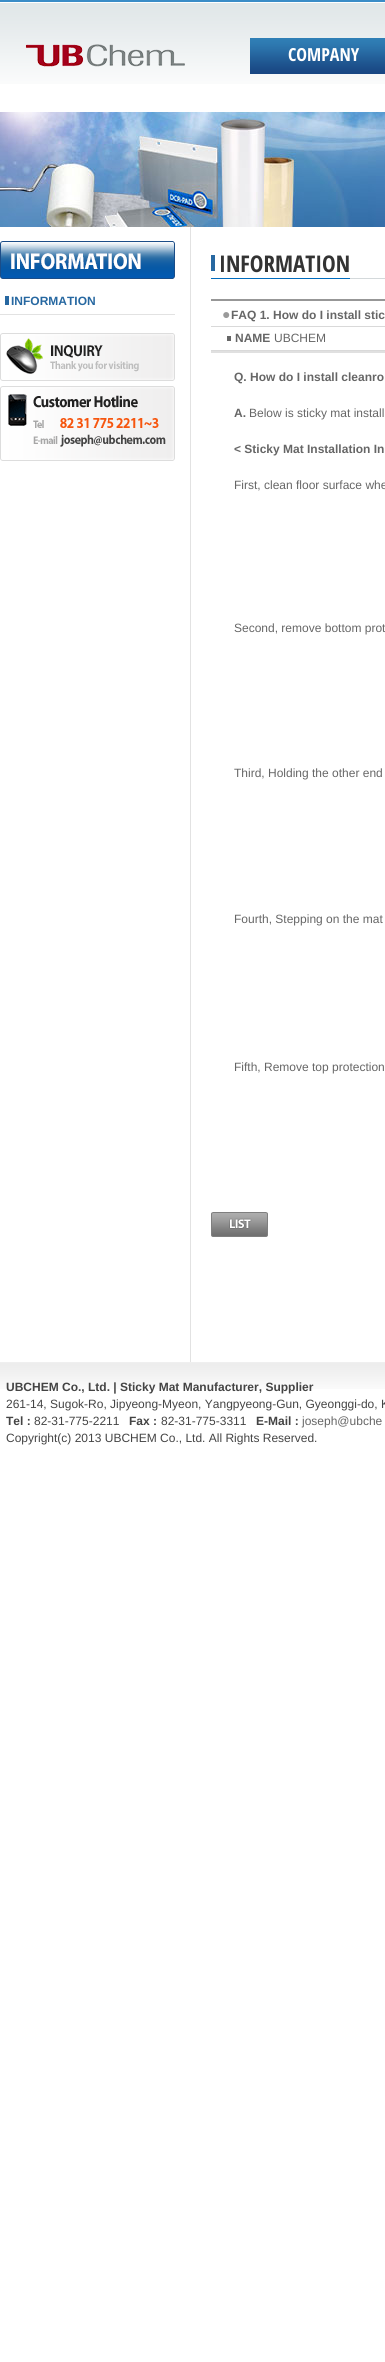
import math
import cairo

surface = cairo.ImageSurface(cairo.FORMAT_RGB24, 385, 2362)
ctx = cairo.Context(surface)
options = cairo.FontOptions()
options.set_hint_metrics(cairo.HINT_METRICS_OFF)
options.set_hint_style(cairo.HINT_STYLE_NONE)
ctx.set_font_options(options)
ctx.set_miter_limit(4)


def spaced_text(x, y, s, letter, word):
    ctx.move_to(x, y)
    for ch in s:
        ctx.show_text(ch)
        ctx.rel_move_to(letter + word * (ch == ' '), 0)


def picture(path, x, y, w, h):
    ctx.save()
    ctx.set_source_surface(cairo.ImageSurface.create_from_png(path), x, y)
    ctx.rectangle(x, y, w, h)
    ctx.fill()
    ctx.restore()


ctx.set_source_rgb(1, 1, 1)
ctx.paint()
picture("img1.png", 0, 0, 385, 84)
picture("img2.png", 25, 44, 160, 23)
picture("img3.png", 250, 38, 135, 36)
ctx.select_font_face("Open Sans Condensed", cairo.FONT_SLANT_NORMAL, cairo.FONT_WEIGHT_BOLD)
ctx.set_font_size(18)
ctx.set_source_rgb(1, 1, 1)
ctx.move_to(288, 61)
ctx.show_text("COMPANY")
ctx.set_source_rgb(0.886, 0.886, 0.886)
ctx.rectangle(190, 227, 1, 1135)
ctx.fill()
picture("img4.png", 0, 112, 385, 115)
picture("img5.png", 0, 241, 175, 38)
ctx.set_source_rgb(0.153, 0.408, 0.631)
ctx.rectangle(5, 296, 4, 9)
ctx.fill()
ctx.set_source_rgb(0.886, 0.886, 0.886)
ctx.rectangle(0, 314, 175, 1)
ctx.fill()
ctx.select_font_face("Liberation Sans", cairo.FONT_SLANT_NORMAL, cairo.FONT_WEIGHT_BOLD)
ctx.set_font_size(12)
ctx.set_source_rgb(0.153, 0.408, 0.631)
ctx.move_to(11, 305)
ctx.show_text("INFORMATION")
picture("img6.png", 0, 333, 175, 48)
picture("img7.png", 0, 386, 175, 75)
ctx.set_source_rgb(0.831, 0.851, 0.859)
ctx.rectangle(350, 278, 35, 1)
ctx.fill()
ctx.set_source_rgb(0.153, 0.408, 0.631)
ctx.rectangle(211, 255, 4, 16)
ctx.fill()
ctx.set_source_rgb(0, 0.42, 0.741)
ctx.rectangle(211, 278, 139, 1)
ctx.fill()
ctx.select_font_face("Open Sans Condensed", cairo.FONT_SLANT_NORMAL, cairo.FONT_WEIGHT_BOLD)
ctx.set_font_size(23)
ctx.set_source_rgb(0.2, 0.2, 0.2)
ctx.move_to(219, 272)
ctx.show_text("INFORMATION")
ctx.set_source_rgb(0.592, 0.592, 0.592)
ctx.rectangle(211, 299, 174, 2)
ctx.fill()
ctx.set_source_rgb(0.878, 0.878, 0.878)
ctx.rectangle(211, 351, 174, 2)
ctx.fill()
ctx.set_source_rgb(0.851, 0.851, 0.851)
ctx.rectangle(211, 326, 174, 1)
ctx.fill()
ctx.select_font_face("Liberation Sans")
ctx.set_font_size(14)
ctx.set_source_rgb(0.604, 0.604, 0.604)
spaced_text(222, 319, "●", -3, 0)
ctx.select_font_face("Liberation Sans", cairo.FONT_SLANT_NORMAL, cairo.FONT_WEIGHT_BOLD)
ctx.set_font_size(12)
ctx.set_source_rgb(0.4, 0.4, 0.4)
ctx.move_to(231, 319)
ctx.show_text("FAQ 1. How do I install stic")
ctx.set_source_rgb(0.851, 0.851, 0.851)
ctx.rectangle(211, 350, 174, 1)
ctx.fill()
ctx.set_source_rgb(0.4, 0.4, 0.4)
ctx.rectangle(227, 336, 4, 5)
ctx.fill()
ctx.move_to(235, 342)
ctx.show_text("NAME")
ctx.select_font_face("Liberation Sans")
ctx.move_to(274, 342)
ctx.show_text("UBCHEM")
ctx.select_font_face("Liberation Sans", cairo.FONT_SLANT_NORMAL, cairo.FONT_WEIGHT_BOLD)
ctx.move_to(234, 381)
ctx.show_text("Q. How do I install cleanro")
ctx.move_to(234, 417)
ctx.show_text("A.")
ctx.select_font_face("Liberation Sans")
ctx.move_to(249, 417)
ctx.show_text("Below is sticky mat install")
ctx.select_font_face("Liberation Sans", cairo.FONT_SLANT_NORMAL, cairo.FONT_WEIGHT_BOLD)
ctx.move_to(234, 453)
ctx.show_text("< Sticky Mat Installation In")
ctx.select_font_face("Liberation Sans")
ctx.move_to(234, 489)
ctx.show_text("First, clean floor surface whe")
ctx.move_to(234, 632)
ctx.show_text("Second, remove bottom prot")
ctx.move_to(234, 777)
ctx.show_text("Third, Holding the other end")
ctx.move_to(234, 923)
ctx.show_text("Fourth, Stepping on the mat")
ctx.move_to(234, 1071)
ctx.show_text("Fifth, Remove top protection")
picture("img8.png", 211, 1212, 57, 25)
picture("img9.png", 0, 1362, 385, 27)
ctx.select_font_face("Liberation Sans", cairo.FONT_SLANT_NORMAL, cairo.FONT_WEIGHT_BOLD)
ctx.set_source_rgb(0.267, 0.267, 0.267)
ctx.move_to(6, 1391)
ctx.show_text("UBCHEM Co., Ltd. | Sticky Mat Manufacturer, Supplier")
ctx.select_font_face("Liberation Sans")
ctx.move_to(6, 1408)
ctx.show_text("261-14, Sugok-Ro, Jipyeong-Myeon, Yangpyeong-Gun, Gyeonggi-do, K")
ctx.select_font_face("Liberation Sans", cairo.FONT_SLANT_NORMAL, cairo.FONT_WEIGHT_BOLD)
ctx.move_to(6, 1425)
ctx.show_text("Tel :")
ctx.select_font_face("Liberation Sans")
ctx.move_to(34, 1425)
ctx.show_text("82-31-775-2211")
ctx.select_font_face("Liberation Sans", cairo.FONT_SLANT_NORMAL, cairo.FONT_WEIGHT_BOLD)
ctx.move_to(129, 1425)
ctx.show_text("Fax :")
ctx.select_font_face("Liberation Sans")
ctx.move_to(161, 1425)
ctx.show_text("82-31-775-3311")
ctx.select_font_face("Liberation Sans", cairo.FONT_SLANT_NORMAL, cairo.FONT_WEIGHT_BOLD)
ctx.move_to(256, 1425)
ctx.show_text("E-Mail :")
ctx.select_font_face("Liberation Sans")
ctx.set_source_rgb(0.4, 0.4, 0.4)
ctx.move_to(302, 1425)
ctx.show_text("joseph@ubche")
ctx.set_source_rgb(0.267, 0.267, 0.267)
ctx.move_to(6, 1442)
ctx.show_text("Copyright(c) 2013 UBCHEM Co., Ltd. All Rights Reserved.")
surface.write_to_png("page.png")
